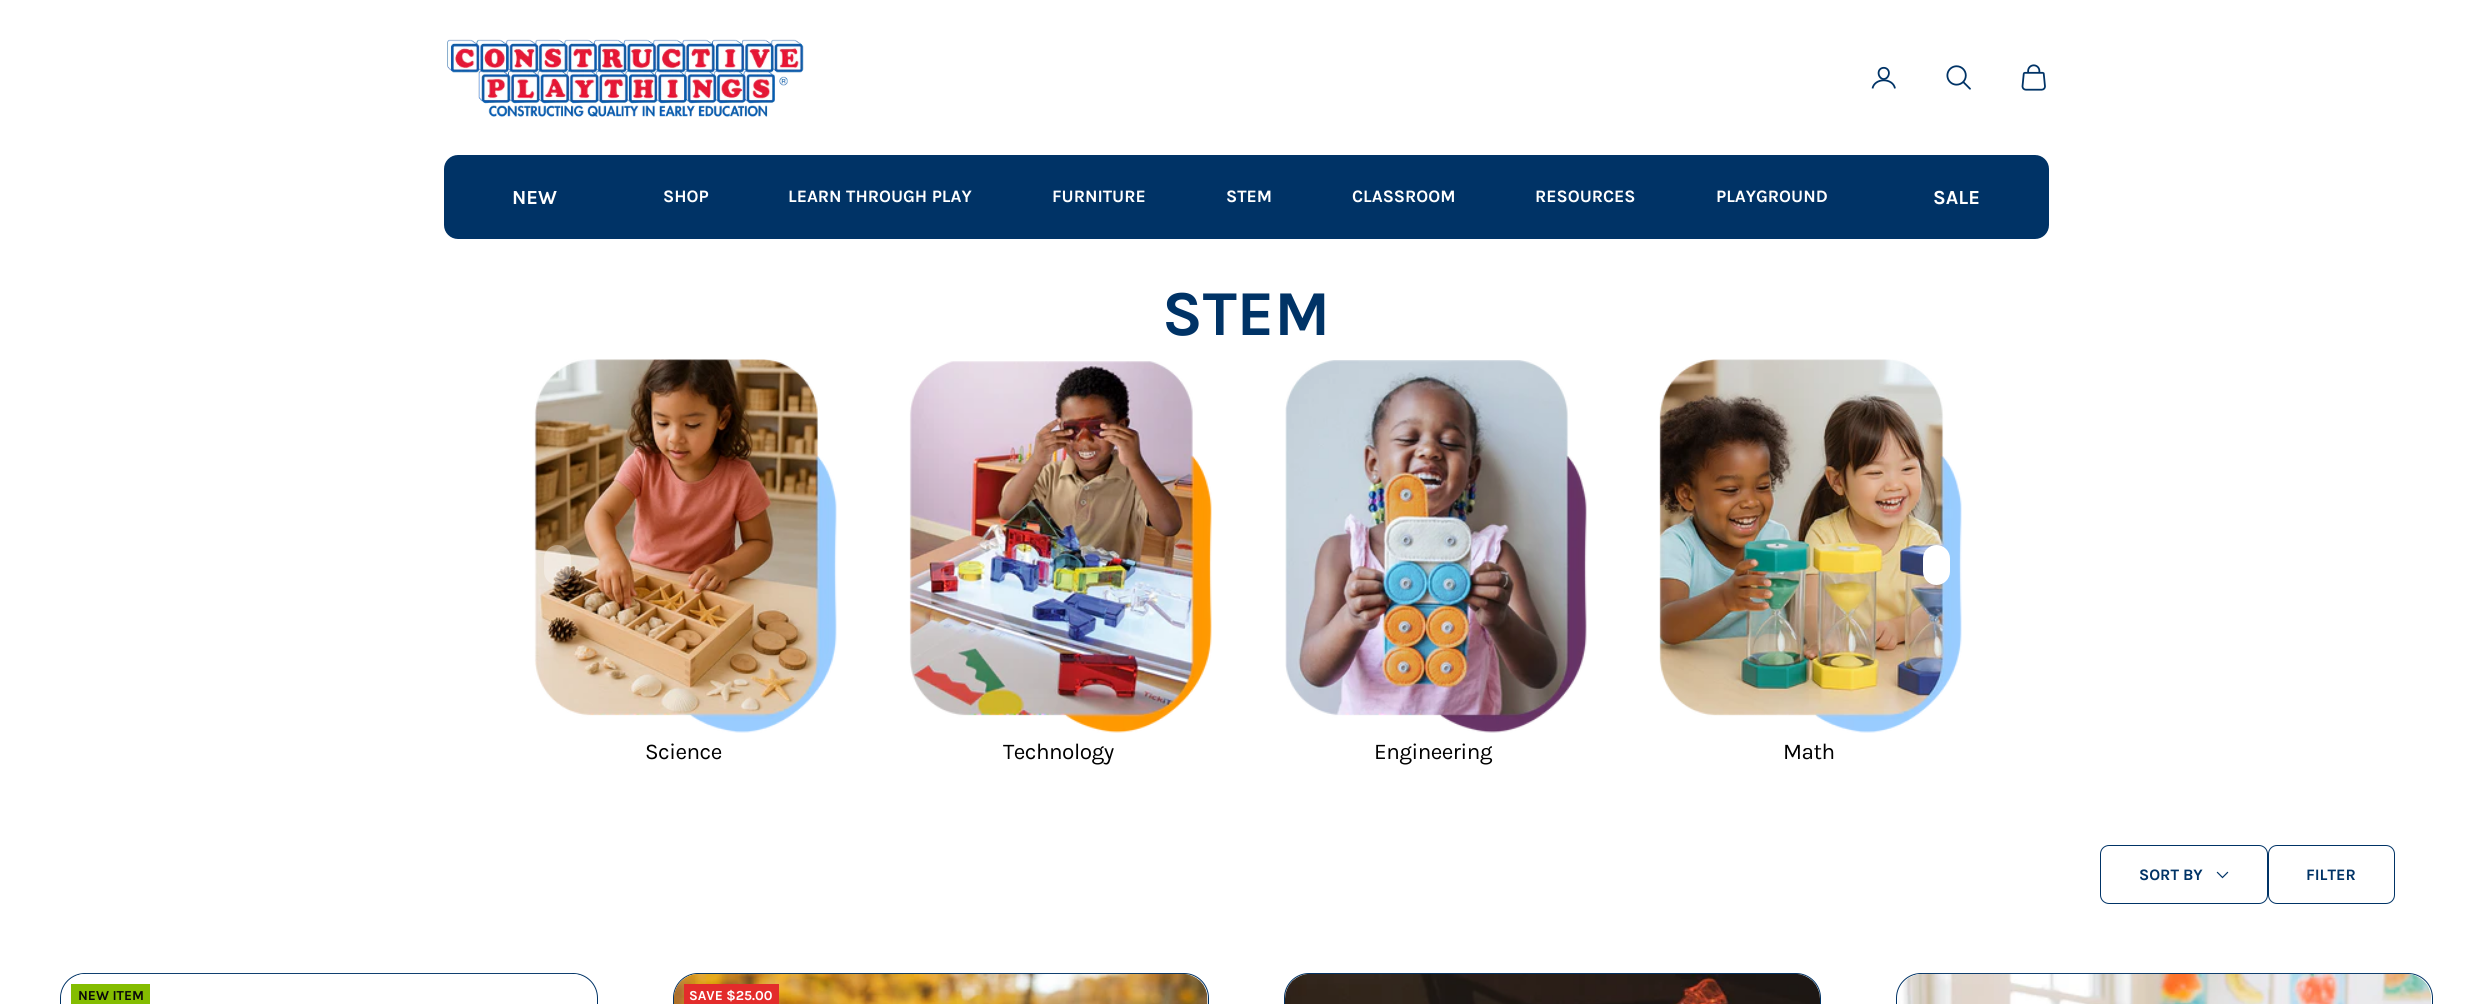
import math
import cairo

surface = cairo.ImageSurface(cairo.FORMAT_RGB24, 2492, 1004)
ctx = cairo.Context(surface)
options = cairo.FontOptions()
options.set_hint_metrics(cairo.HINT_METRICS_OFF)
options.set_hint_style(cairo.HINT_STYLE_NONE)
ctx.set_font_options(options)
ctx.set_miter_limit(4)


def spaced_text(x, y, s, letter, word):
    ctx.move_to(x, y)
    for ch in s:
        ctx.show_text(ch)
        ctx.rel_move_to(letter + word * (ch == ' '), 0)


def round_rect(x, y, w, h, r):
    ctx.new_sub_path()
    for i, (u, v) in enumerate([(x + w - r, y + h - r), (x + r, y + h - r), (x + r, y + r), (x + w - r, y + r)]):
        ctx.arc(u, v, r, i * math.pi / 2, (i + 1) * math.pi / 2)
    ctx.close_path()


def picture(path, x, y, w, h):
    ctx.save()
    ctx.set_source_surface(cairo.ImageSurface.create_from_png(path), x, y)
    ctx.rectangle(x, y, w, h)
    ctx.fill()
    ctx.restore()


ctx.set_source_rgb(1, 1, 1)
ctx.paint()
picture("img1.png", 447, 39, 357, 78)
picture("img2.png", 1871, 66, 25, 23)
picture("img3.png", 1946, 65, 25, 25)
picture("img4.png", 2021, 64, 25, 27)
ctx.set_source_rgb(0, 0.2, 0.4)
round_rect(444, 155, 1605, 84, 14)
ctx.fill()
ctx.select_font_face("Karla", cairo.FONT_SLANT_NORMAL, cairo.FONT_WEIGHT_BOLD)
ctx.set_font_size(20)
ctx.set_source_rgb(1, 1, 1)
ctx.move_to(512, 204)
ctx.show_text("NEW")
ctx.set_font_size(17.5)
ctx.move_to(663, 202)
ctx.show_text("SHOP")
ctx.move_to(788, 202)
ctx.show_text("LEARN THROUGH PLAY")
ctx.move_to(1052, 202)
ctx.show_text("FURNITURE")
ctx.move_to(1226, 202)
ctx.show_text("STEM")
ctx.move_to(1352, 202)
ctx.show_text("CLASSROOM")
ctx.move_to(1535, 202)
ctx.show_text("RESOURCES")
ctx.move_to(1716, 202)
ctx.show_text("PLAYGROUND")
ctx.set_font_size(20)
ctx.move_to(1933, 204)
ctx.show_text("SALE")
ctx.set_font_size(64)
ctx.set_source_rgb(0, 0.2, 0.4)
ctx.move_to(1162, 335)
ctx.show_text("STEM")
picture("img5.png", 534, 359, 303, 374)
ctx.set_source_rgba(1, 1, 1, 0.35)
round_rect(544, 545, 27, 40, 13.5)
ctx.fill()
picture("img8.png", 1659, 359, 303, 374)
ctx.set_source_rgb(1, 1, 1)
round_rect(1923, 545, 27, 40, 13.5)
ctx.fill()
ctx.select_font_face("Karla")
ctx.set_font_size(22.5)
ctx.set_source_rgb(0, 0, 0)
spaced_text(645, 759, "Science", -0.5, 0)
picture("img6.png", 909, 361, 303, 372)
spaced_text(1003, 759, "Technology", -0.5, 0)
picture("img7.png", 1285, 360, 302, 373)
spaced_text(1374, 759, "Engineering", -0.5, 0)
spaced_text(1783, 759, "Math", -0.5, 0)
round_rect(2100.5, 845.5, 167, 58, 8.5)
ctx.set_source_rgb(0, 0.2, 0.4)
ctx.set_line_width(1)
ctx.stroke()
ctx.select_font_face("Karla", cairo.FONT_SLANT_NORMAL, cairo.FONT_WEIGHT_BOLD)
ctx.set_font_size(16)
ctx.move_to(2139, 880)
ctx.show_text("SORT BY")
ctx.new_path()
ctx.move_to(2217.5, 872.5)
ctx.line_to(2222.5, 877.5)
ctx.line_to(2227.5, 872.5)
ctx.set_line_width(1.2)
ctx.set_line_cap(cairo.LINE_CAP_SQUARE)
ctx.stroke()
round_rect(2268.5, 845.5, 126, 58, 8.5)
ctx.set_line_width(1)
ctx.set_line_cap(cairo.LINE_CAP_BUTT)
ctx.stroke()
ctx.move_to(2306, 880)
ctx.show_text("FILTER")
round_rect(60.5, 973.5, 537, 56, 24.5)
ctx.stroke()
picture("img9.png", 61, 973, 522, 24)
ctx.set_source_rgb(0.518, 0.741, 0)
ctx.rectangle(71, 984, 79, 20)
ctx.fill()
ctx.set_font_size(13.75)
ctx.set_source_rgb(0.039, 0.039, 0.039)
ctx.move_to(78, 1000)
ctx.show_text("NEW ITEM")
round_rect(673.5, 973.5, 535, 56, 24.5)
ctx.set_source_rgb(0, 0.2, 0.4)
ctx.stroke()
picture("img10.png", 673, 973, 535, 31)
ctx.set_source_rgb(0.89, 0.173, 0.169)
ctx.rectangle(684, 984, 95, 20)
ctx.fill()
ctx.set_source_rgb(1, 1, 1)
ctx.move_to(689, 1000)
ctx.show_text("SAVE $25.00")
round_rect(1284.5, 973.5, 536, 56, 24.5)
ctx.set_source_rgb(0, 0.2, 0.4)
ctx.stroke()
picture("img11.png", 1285, 973, 535, 31)
round_rect(1896.5, 973.5, 536, 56, 24.5)
ctx.stroke()
picture("img12.png", 1898, 973, 533, 31)
surface.write_to_png("page.png")
